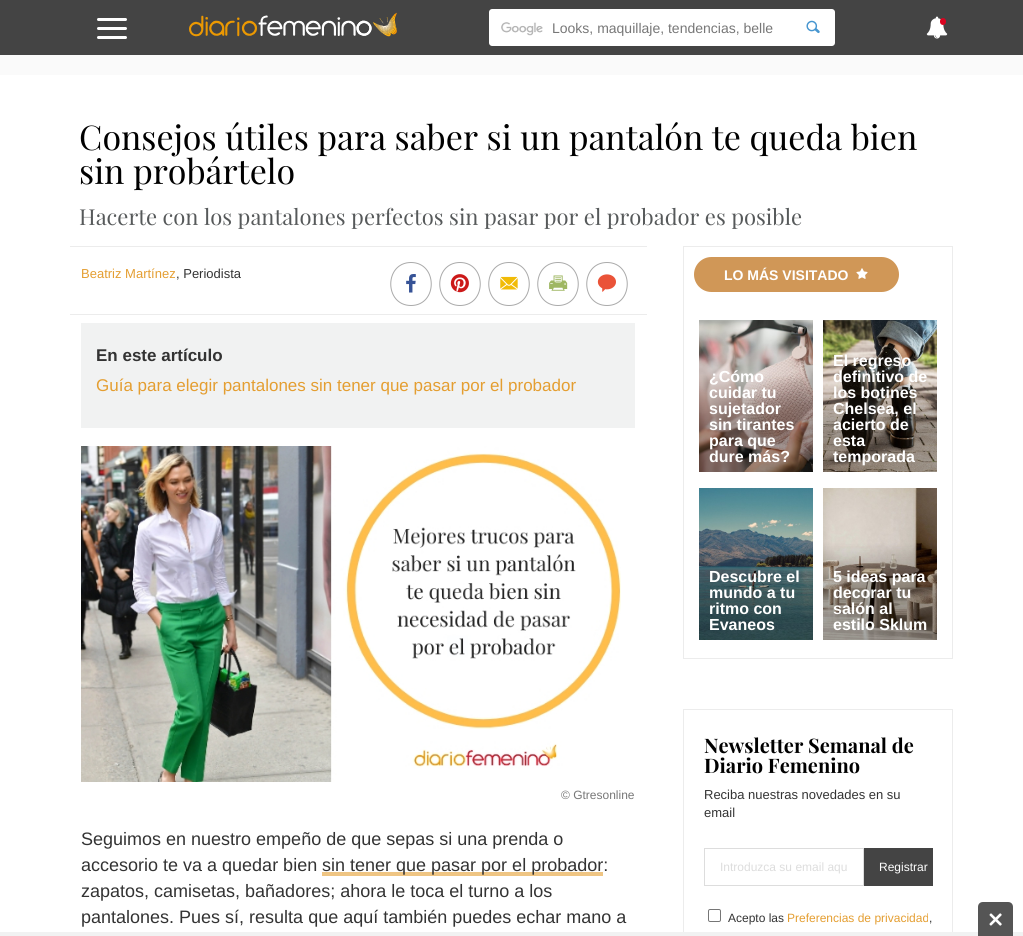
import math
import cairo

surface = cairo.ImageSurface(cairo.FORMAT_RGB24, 1023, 936)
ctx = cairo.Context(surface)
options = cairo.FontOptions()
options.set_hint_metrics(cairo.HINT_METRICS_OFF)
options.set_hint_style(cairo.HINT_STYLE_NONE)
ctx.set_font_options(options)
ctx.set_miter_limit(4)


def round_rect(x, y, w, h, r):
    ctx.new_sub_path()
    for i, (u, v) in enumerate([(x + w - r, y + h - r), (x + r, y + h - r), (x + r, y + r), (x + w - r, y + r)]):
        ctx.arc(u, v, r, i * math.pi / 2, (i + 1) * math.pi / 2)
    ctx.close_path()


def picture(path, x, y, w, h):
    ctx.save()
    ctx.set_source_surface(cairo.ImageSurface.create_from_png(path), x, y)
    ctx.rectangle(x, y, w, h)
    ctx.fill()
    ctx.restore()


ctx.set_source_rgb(1, 1, 1)
ctx.paint()
ctx.set_source_rgb(0.267, 0.267, 0.267)
ctx.rectangle(0, 0, 1023, 55)
ctx.fill()
ctx.set_source_rgb(1, 1, 1)
round_rect(97, 18, 30, 3, 1.5)
ctx.fill()
round_rect(97, 27, 30, 3, 1.5)
ctx.fill()
round_rect(97, 36, 30, 3, 1.5)
ctx.fill()
picture("img1.png", 189, 12, 208, 25)
ctx.new_path()
ctx.move_to(492, 9)
ctx.line_to(791, 9)
ctx.line_to(791, 46)
ctx.line_to(492, 46)
ctx.curve_to(490.5, 46, 489, 44.5, 489, 43)
ctx.line_to(489, 12)
ctx.curve_to(489, 10.5, 490.5, 9, 492, 9)
ctx.close_path()
ctx.fill()
picture("img2.png", 501, 22, 42, 14)
ctx.select_font_face("Liberation Sans")
ctx.set_font_size(14)
ctx.set_source_rgb(0.467, 0.467, 0.467)
ctx.move_to(552, 33)
ctx.show_text("Looks, maquillaje, tendencias, belle")
ctx.set_source_rgb(1, 1, 1)
ctx.new_path()
ctx.move_to(791, 9)
ctx.line_to(832, 9)
ctx.curve_to(833.5, 9, 835, 10.5, 835, 12)
ctx.line_to(835, 43)
ctx.curve_to(835, 44.5, 833.5, 46, 832, 46)
ctx.line_to(791, 46)
ctx.close_path()
ctx.fill()
picture("img3.png", 806, 20, 14, 14)
picture("img4.png", 926, 16, 22, 23)
ctx.set_source_rgb(0.851, 0.012, 0.122)
round_rect(940, 18, 6, 7, 3)
ctx.fill()
ctx.set_source_rgb(0.98, 0.98, 0.98)
ctx.rectangle(0, 55, 1023, 20)
ctx.fill()
ctx.select_font_face("Playfair Display")
ctx.set_font_size(34)
ctx.set_source_rgb(0, 0, 0)
ctx.move_to(79, 150)
ctx.show_text("Consejos útiles para saber si un pantalón te queda bien")
ctx.move_to(79, 184)
ctx.show_text("sin probártelo")
ctx.set_font_size(22)
ctx.set_source_rgb(0.337, 0.349, 0.353)
ctx.move_to(79, 225)
ctx.show_text("Hacerte con los pantalones perfectos sin pasar por el probador es posible")
ctx.set_source_rgb(0.922, 0.922, 0.922)
ctx.rectangle(70, 246, 577, 1)
ctx.fill()
ctx.rectangle(70, 314, 577, 1)
ctx.fill()
ctx.select_font_face("Liberation Sans")
ctx.set_font_size(13)
ctx.set_source_rgb(0.894, 0.62, 0.192)
ctx.move_to(81, 278)
ctx.show_text("Beatriz Martínez")
ctx.set_source_rgb(0.2, 0.2, 0.2)
ctx.move_to(176, 278)
ctx.show_text(", Periodista")
ctx.new_path()
ctx.move_to(411, 262.5)
ctx.curve_to(438, 262.5, 438, 305.5, 411, 305.5)
ctx.curve_to(384, 305.5, 384, 262.5, 411, 262.5)
ctx.close_path()
ctx.set_source_rgb(0.667, 0.667, 0.667)
ctx.set_line_width(1)
ctx.stroke()
picture("img5.png", 406, 274, 10, 19)
ctx.new_path()
ctx.move_to(460, 262.5)
ctx.curve_to(487, 262.5, 487, 305.5, 460, 305.5)
ctx.curve_to(433, 305.5, 433, 262.5, 460, 262.5)
ctx.close_path()
ctx.stroke()
picture("img6.png", 450, 274, 19, 19)
ctx.new_path()
ctx.move_to(509, 262.5)
ctx.curve_to(536, 262.5, 536, 305.5, 509, 305.5)
ctx.curve_to(482, 305.5, 482, 262.5, 509, 262.5)
ctx.close_path()
ctx.stroke()
picture("img7.png", 500, 276, 18, 14)
ctx.new_path()
ctx.move_to(558, 262.5)
ctx.curve_to(585, 262.5, 585, 305.5, 558, 305.5)
ctx.curve_to(531, 305.5, 531, 262.5, 558, 262.5)
ctx.close_path()
ctx.stroke()
picture("img8.png", 549, 275, 19, 16)
ctx.new_path()
ctx.move_to(607, 262.5)
ctx.curve_to(634, 262.5, 634, 305.5, 607, 305.5)
ctx.curve_to(580, 305.5, 580, 262.5, 607, 262.5)
ctx.close_path()
ctx.stroke()
picture("img9.png", 597, 274, 19, 18)
ctx.set_source_rgb(0.945, 0.949, 0.949)
ctx.rectangle(81, 323, 554, 105)
ctx.fill()
ctx.select_font_face("Liberation Sans", cairo.FONT_SLANT_NORMAL, cairo.FONT_WEIGHT_BOLD)
ctx.set_font_size(17)
ctx.set_source_rgb(0.2, 0.2, 0.2)
ctx.move_to(96, 361)
ctx.show_text("En este artículo")
ctx.select_font_face("Liberation Sans")
ctx.set_source_rgb(0.894, 0.62, 0.192)
ctx.move_to(96, 391)
ctx.show_text("Guía para elegir pantalones sin tener que pasar por el probador")
picture("img10.png", 81, 446, 540, 336)
ctx.set_font_size(12)
ctx.set_source_rgb(0.467, 0.467, 0.467)
ctx.move_to(561, 799)
ctx.show_text("© Gtresonline")
ctx.set_font_size(18)
ctx.set_source_rgb(0.2, 0.2, 0.2)
ctx.move_to(81, 845)
ctx.show_text("Seguimos en nuestro empeño de que sepas si una prenda o")
ctx.move_to(81, 871)
ctx.show_text("accesorio te va a quedar bien")
ctx.set_source_rgb(0.937, 0.773, 0.514)
ctx.rectangle(322, 872, 281, 4)
ctx.fill()
ctx.set_source_rgb(0.2, 0.2, 0.2)
ctx.move_to(322, 871)
ctx.show_text("sin tener que pasar por el probador:")
ctx.move_to(81, 897)
ctx.show_text("zapatos, camisetas, bañadores; ahora le toca el turno a los")
ctx.move_to(81, 923)
ctx.show_text("pantalones. Pues sí, resulta que aquí también puedes echar mano a")
ctx.rectangle(683.5, 246.5, 269, 412)
ctx.set_source_rgb(0.922, 0.922, 0.922)
ctx.stroke()
ctx.set_source_rgb(0.816, 0.592, 0.341)
round_rect(694, 257, 205, 35, 17.5)
ctx.fill()
ctx.select_font_face("Liberation Sans", cairo.FONT_SLANT_NORMAL, cairo.FONT_WEIGHT_BOLD)
ctx.set_font_size(14)
ctx.set_source_rgb(1, 1, 1)
ctx.move_to(724, 280)
ctx.show_text("LO MÁS VISITADO")
picture("img11.png", 856, 268, 12, 11)
picture("img12.png", 699, 320, 114, 152)
ctx.set_font_size(16)
ctx.move_to(709, 382)
ctx.show_text("¿Cómo")
ctx.move_to(709, 398)
ctx.show_text("cuidar tu")
ctx.move_to(709, 414)
ctx.show_text("sujetador")
ctx.move_to(709, 430)
ctx.show_text("sin tirantes")
ctx.move_to(709, 446)
ctx.show_text("para que")
ctx.move_to(709, 462)
ctx.show_text("dure más?")
picture("img13.png", 823, 320, 114, 152)
ctx.move_to(833, 366)
ctx.show_text("El regreso")
ctx.move_to(833, 382)
ctx.show_text("definitivo de")
ctx.move_to(833, 398)
ctx.show_text("los botines")
ctx.move_to(833, 414)
ctx.show_text("Chelsea, el")
ctx.move_to(833, 430)
ctx.show_text("acierto de")
ctx.move_to(833, 446)
ctx.show_text("esta")
ctx.move_to(833, 462)
ctx.show_text("temporada")
picture("img14.png", 699, 488, 114, 152)
ctx.move_to(709, 582)
ctx.show_text("Descubre el")
ctx.move_to(709, 598)
ctx.show_text("mundo a tu")
ctx.move_to(709, 614)
ctx.show_text("ritmo con")
ctx.move_to(709, 630)
ctx.show_text("Evaneos")
picture("img15.png", 823, 488, 114, 152)
ctx.move_to(833, 582)
ctx.show_text("5 ideas para")
ctx.move_to(833, 598)
ctx.show_text("decorar tu")
ctx.move_to(833, 614)
ctx.show_text("salón al")
ctx.move_to(833, 630)
ctx.show_text("estilo Sklum")
ctx.rectangle(683.5, 709.5, 269, 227)
ctx.set_source_rgb(0.922, 0.922, 0.922)
ctx.stroke()
ctx.select_font_face("Playfair Display", cairo.FONT_SLANT_NORMAL, cairo.FONT_WEIGHT_BOLD)
ctx.set_font_size(20)
ctx.set_source_rgb(0, 0, 0)
ctx.move_to(704, 753)
ctx.show_text("Newsletter Semanal de")
ctx.move_to(704, 773)
ctx.show_text("Diario Femenino")
ctx.select_font_face("Liberation Sans")
ctx.set_font_size(13)
ctx.set_source_rgb(0.2, 0.2, 0.2)
ctx.move_to(704, 799)
ctx.show_text("Reciba nuestras novedades en su")
ctx.move_to(704, 817)
ctx.show_text("email")
ctx.rectangle(704.5, 848.5, 159, 37)
ctx.set_source_rgb(0.867, 0.867, 0.867)
ctx.stroke()
ctx.set_font_size(12)
ctx.move_to(720, 871)
ctx.show_text("Introduzca su email aqu")
ctx.set_source_rgb(0.267, 0.267, 0.267)
ctx.rectangle(864, 848, 69, 38)
ctx.fill()
ctx.set_source_rgb(1, 1, 1)
ctx.move_to(879, 871)
ctx.show_text("Registrar")
round_rect(708.5, 909.5, 12, 12, 1.5)
ctx.set_source_rgb(0.463, 0.463, 0.463)
ctx.stroke()
ctx.set_source_rgb(0.2, 0.2, 0.2)
ctx.move_to(728, 922)
ctx.show_text("Acepto las")
ctx.set_source_rgb(0.894, 0.62, 0.192)
ctx.move_to(787, 922)
ctx.show_text("Preferencias de privacidad")
ctx.set_source_rgb(0.2, 0.2, 0.2)
ctx.move_to(929, 922)
ctx.show_text(",")
ctx.set_source_rgb(0.945, 0.949, 0.949)
ctx.rectangle(0, 932, 1023, 4)
ctx.fill()
ctx.set_source_rgb(0.333, 0.333, 0.333)
ctx.new_path()
ctx.move_to(983, 902)
ctx.line_to(1008, 902)
ctx.curve_to(1011, 902, 1013, 904, 1013, 907)
ctx.line_to(1013, 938)
ctx.line_to(978, 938)
ctx.line_to(978, 907)
ctx.curve_to(978, 904, 980, 902, 983, 902)
ctx.close_path()
ctx.fill()
picture("img16.png", 989, 913, 13, 13)
surface.write_to_png("page.png")
